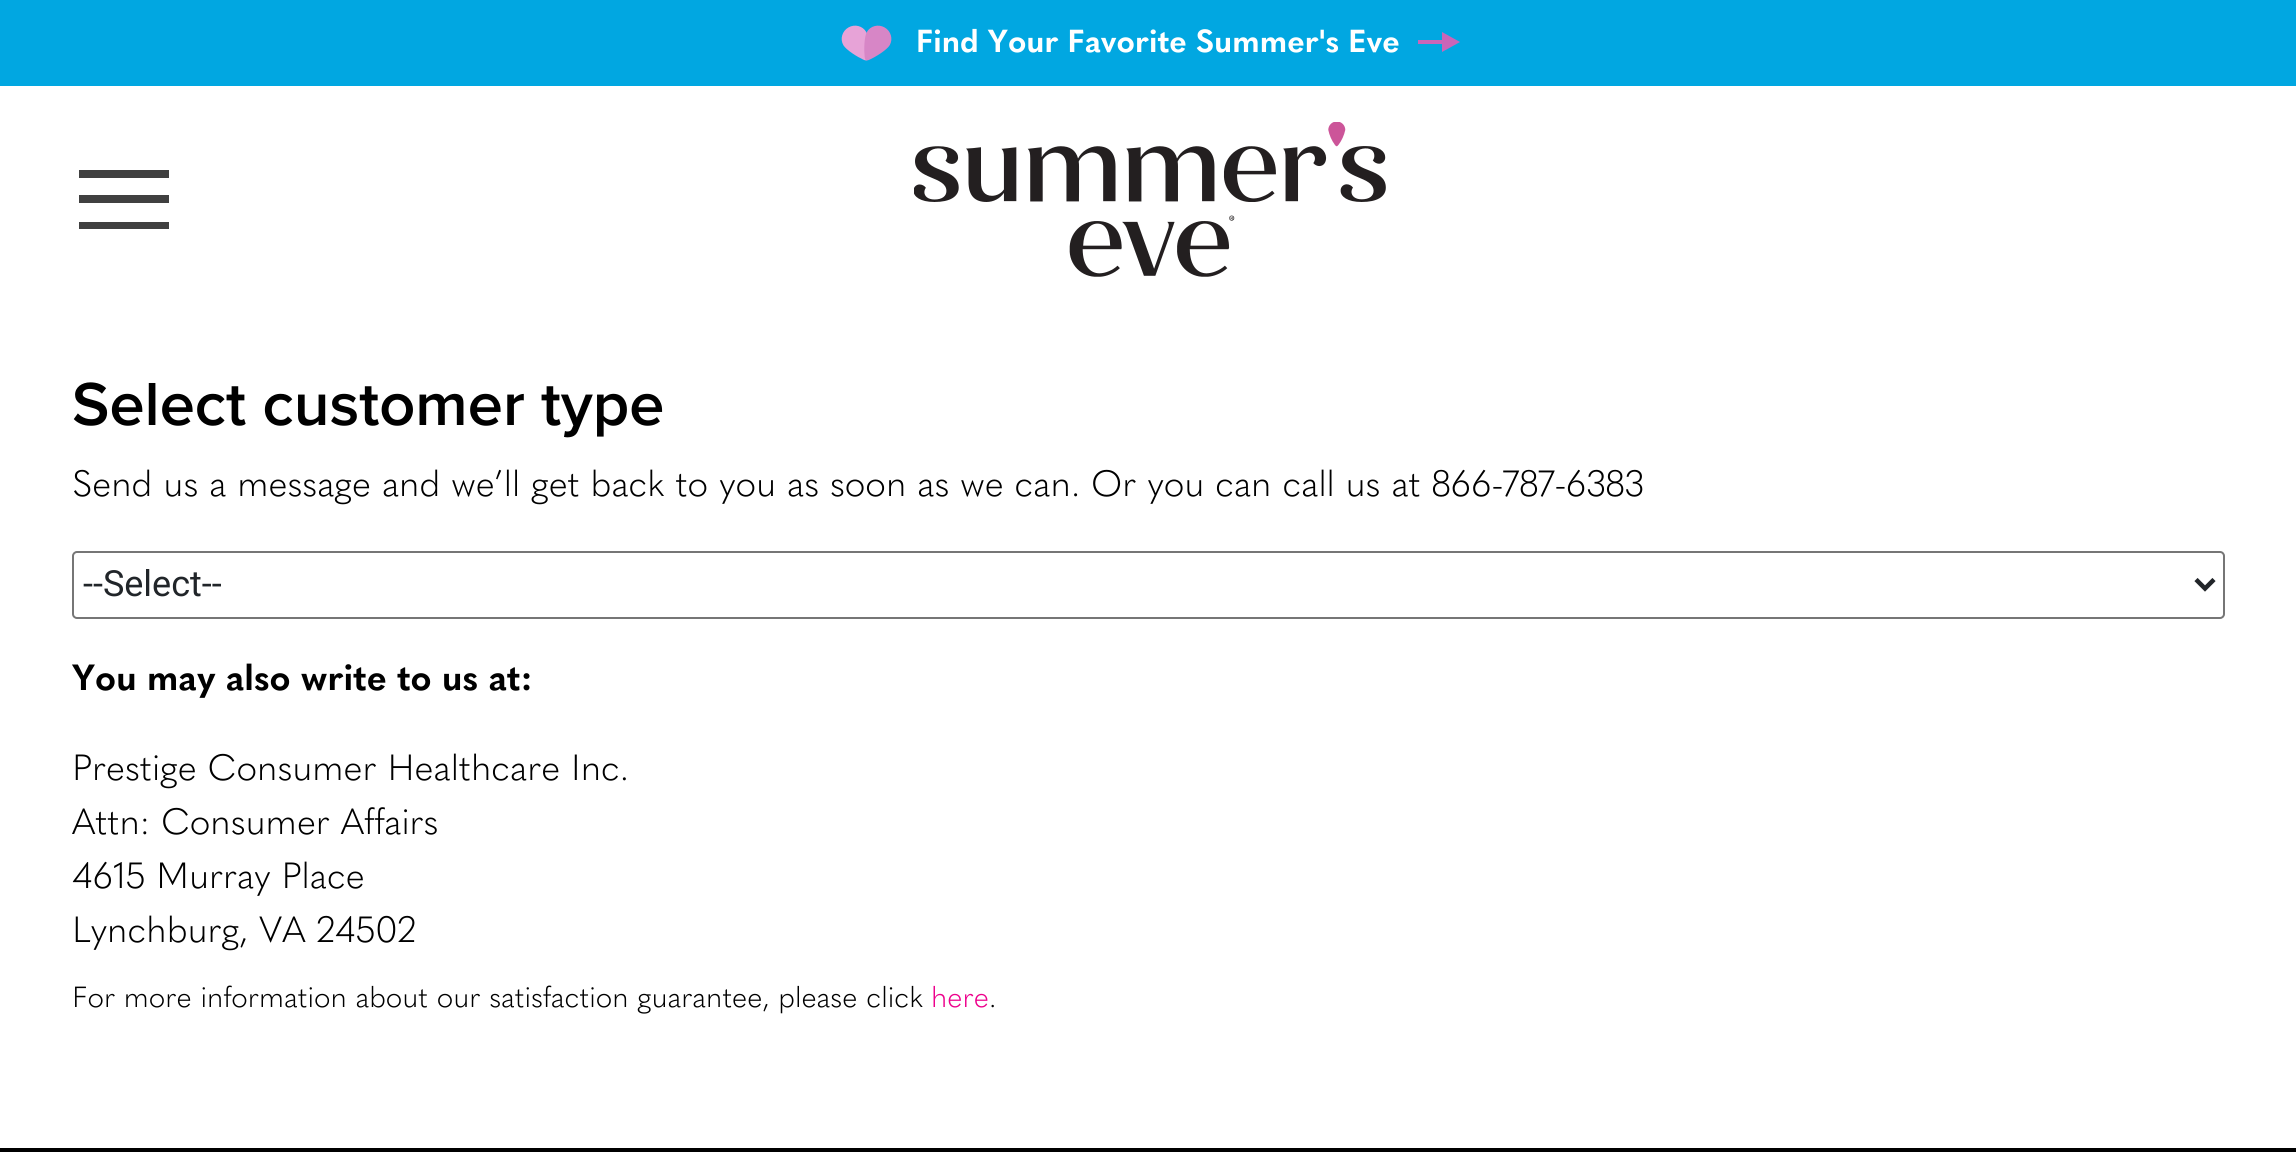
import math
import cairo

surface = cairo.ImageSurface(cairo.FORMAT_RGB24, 2296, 1152)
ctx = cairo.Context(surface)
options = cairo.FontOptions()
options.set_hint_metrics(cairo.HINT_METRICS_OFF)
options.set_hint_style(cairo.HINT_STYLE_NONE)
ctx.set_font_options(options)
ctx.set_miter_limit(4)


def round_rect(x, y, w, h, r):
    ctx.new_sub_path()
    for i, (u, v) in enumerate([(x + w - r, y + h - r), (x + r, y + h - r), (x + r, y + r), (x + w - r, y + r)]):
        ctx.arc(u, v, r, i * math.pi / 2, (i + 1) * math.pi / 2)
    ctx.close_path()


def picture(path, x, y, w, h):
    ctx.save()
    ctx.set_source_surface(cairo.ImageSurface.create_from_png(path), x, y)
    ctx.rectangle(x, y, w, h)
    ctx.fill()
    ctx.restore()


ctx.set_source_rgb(1, 1, 1)
ctx.paint()
ctx.set_source_rgb(0.004, 0.655, 0.882)
ctx.rectangle(0, 0, 2296, 86)
ctx.fill()
picture("img1.png", 841, 25, 51, 36)
ctx.select_font_face("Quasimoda", cairo.FONT_SLANT_NORMAL, cairo.FONT_WEIGHT_BOLD)
ctx.set_font_size(31.5)
ctx.set_source_rgb(1, 1, 1)
ctx.move_to(916, 52)
ctx.show_text("Find Your Favorite Summer's Eve")
ctx.set_source_rgb(0.792, 0.396, 0.722)
ctx.new_path()
ctx.move_to(1460, 42)
ctx.line_to(1442, 32)
ctx.line_to(1442, 52)
ctx.close_path()
ctx.move_to(1418, 44)
ctx.line_to(1444, 44)
ctx.line_to(1444, 40)
ctx.line_to(1418, 40)
ctx.close_path()
ctx.fill()
ctx.set_source_rgb(0.251, 0.251, 0.251)
ctx.rectangle(79, 170, 90, 8)
ctx.fill()
ctx.rectangle(79, 195, 90, 8)
ctx.fill()
ctx.rectangle(79, 222, 90, 7)
ctx.fill()
picture("img2.png", 914, 122, 472, 155)
ctx.select_font_face("Proxima Nova SemiBold")
ctx.set_font_size(63)
ctx.set_source_rgb(0, 0, 0)
ctx.move_to(72, 425)
ctx.show_text("Select customer type")
ctx.select_font_face("Quasimoda Light")
ctx.set_font_size(36)
ctx.move_to(72, 496)
ctx.show_text("Send us a message and we’ll get back to you as soon as we can. Or you can call us at 866-787-6383")
round_rect(73, 552, 2151, 66, 4)
ctx.set_source_rgb(0.463, 0.463, 0.463)
ctx.stroke()
ctx.new_path()
ctx.move_to(2196, 579.5)
ctx.line_to(2205, 588.5)
ctx.line_to(2214, 579.5)
ctx.set_source_rgb(0.129, 0.145, 0.161)
ctx.set_line_width(4.5)
ctx.stroke()
ctx.select_font_face("Roboto")
ctx.move_to(83, 596)
ctx.show_text("--Select--")
ctx.select_font_face("Quasimoda", cairo.FONT_SLANT_NORMAL, cairo.FONT_WEIGHT_BOLD)
ctx.set_source_rgb(0, 0, 0)
ctx.move_to(72, 690)
ctx.show_text("You may also write to us at:")
ctx.select_font_face("Quasimoda Light")
ctx.move_to(72, 780)
ctx.show_text("Prestige Consumer Healthcare Inc.")
ctx.move_to(72, 834)
ctx.show_text("Attn: Consumer Affairs")
ctx.move_to(72, 888)
ctx.show_text("4615 Murray Place")
ctx.move_to(72, 942)
ctx.show_text("Lynchburg, VA 24502")
ctx.set_font_size(28.8)
ctx.move_to(72, 1007)
ctx.show_text("For more information about our satisfaction guarantee, please click")
ctx.set_source_rgb(0.929, 0, 0.549)
ctx.move_to(931, 1007)
ctx.show_text("here")
ctx.set_source_rgb(0, 0, 0)
ctx.move_to(989, 1007)
ctx.show_text(".")
ctx.rectangle(0, 1148, 2296, 4)
ctx.fill()
surface.write_to_png("page.png")
